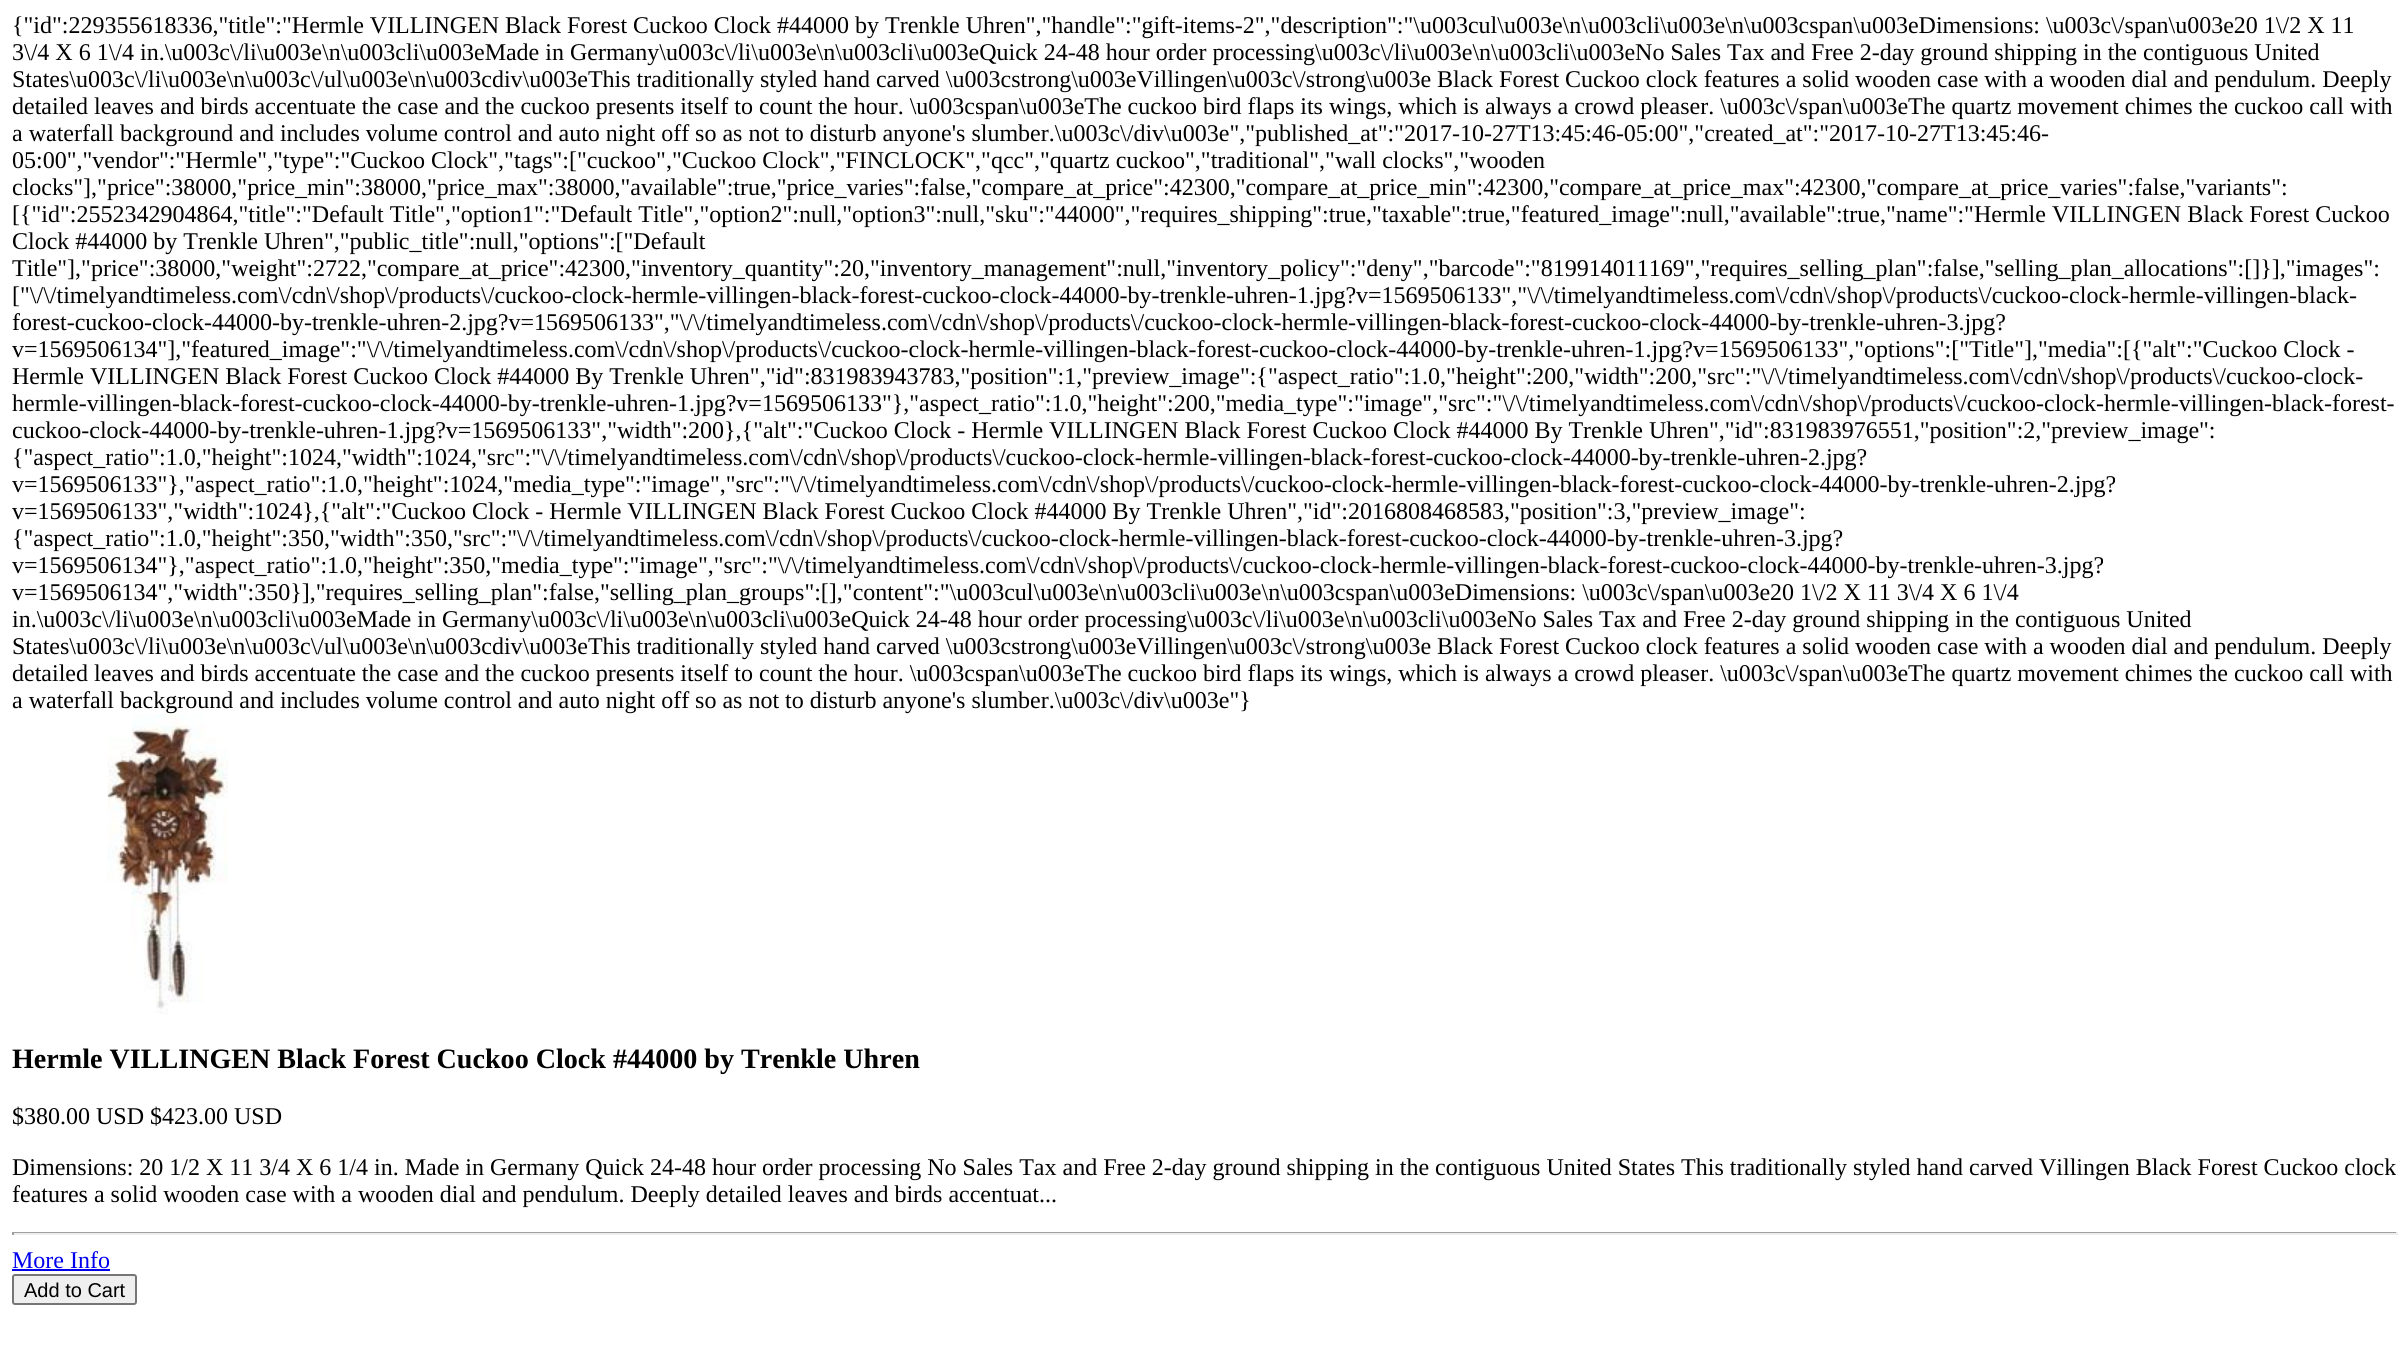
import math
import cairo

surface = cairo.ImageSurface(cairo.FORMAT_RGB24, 2408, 1362)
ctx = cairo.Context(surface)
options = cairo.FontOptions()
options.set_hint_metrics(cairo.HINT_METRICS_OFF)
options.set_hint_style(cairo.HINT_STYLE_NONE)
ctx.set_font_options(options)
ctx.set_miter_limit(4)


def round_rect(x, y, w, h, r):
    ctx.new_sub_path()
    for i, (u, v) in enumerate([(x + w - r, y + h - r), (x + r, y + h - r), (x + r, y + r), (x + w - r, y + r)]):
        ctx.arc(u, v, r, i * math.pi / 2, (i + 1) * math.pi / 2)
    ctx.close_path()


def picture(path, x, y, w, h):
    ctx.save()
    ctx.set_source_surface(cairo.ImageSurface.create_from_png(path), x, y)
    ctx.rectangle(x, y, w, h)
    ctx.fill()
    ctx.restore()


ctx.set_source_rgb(1, 1, 1)
ctx.paint()
ctx.select_font_face("Liberation Serif")
ctx.set_font_size(24)
ctx.set_source_rgb(0, 0, 0)
ctx.move_to(12, 33)
ctx.show_text("{\"id\":229355618336,\"title\":\"Hermle VILLINGEN Black Forest Cuckoo Clock #44000 by Trenkle Uhren\",\"handle\":\"gift-items-2\",\"description\":\"\\u003cul\\u003e\\n\\u003cli\\u003e\\n\\u003cspan\\u003eDimensions: \\u003c\\/span\\u003e20 1\\/2 X 11")
ctx.move_to(12, 60)
ctx.show_text("3\\/4 X 6 1\\/4 in.\\u003c\\/li\\u003e\\n\\u003cli\\u003eMade in Germany\\u003c\\/li\\u003e\\n\\u003cli\\u003eQuick 24-48 hour order processing\\u003c\\/li\\u003e\\n\\u003cli\\u003eNo Sales Tax and Free 2-day ground shipping in the contiguous United")
ctx.move_to(12, 87)
ctx.show_text("States\\u003c\\/li\\u003e\\n\\u003c\\/ul\\u003e\\n\\u003cdiv\\u003eThis traditionally styled hand carved \\u003cstrong\\u003eVillingen\\u003c\\/strong\\u003e Black Forest Cuckoo clock features a solid wooden case with a wooden dial and pendulum. Deeply")
ctx.move_to(12, 114)
ctx.show_text("detailed leaves and birds accentuate the case and the cuckoo presents itself to count the hour. \\u003cspan\\u003eThe cuckoo bird flaps its wings, which is always a crowd pleaser. \\u003c\\/span\\u003eThe quartz movement chimes the cuckoo call with")
ctx.move_to(12, 141)
ctx.show_text("a waterfall background and includes volume control and auto night off so as not to disturb anyone's slumber.\\u003c\\/div\\u003e\",\"published_at\":\"2017-10-27T13:45:46-05:00\",\"created_at\":\"2017-10-27T13:45:46-")
ctx.move_to(12, 168)
ctx.show_text("05:00\",\"vendor\":\"Hermle\",\"type\":\"Cuckoo Clock\",\"tags\":[\"cuckoo\",\"Cuckoo Clock\",\"FINCLOCK\",\"qcc\",\"quartz cuckoo\",\"traditional\",\"wall clocks\",\"wooden")
ctx.move_to(12, 195)
ctx.show_text("clocks\"],\"price\":38000,\"price_min\":38000,\"price_max\":38000,\"available\":true,\"price_varies\":false,\"compare_at_price\":42300,\"compare_at_price_min\":42300,\"compare_at_price_max\":42300,\"compare_at_price_varies\":false,\"variants\":")
ctx.move_to(12, 222)
ctx.show_text("[{\"id\":2552342904864,\"title\":\"Default Title\",\"option1\":\"Default Title\",\"option2\":null,\"option3\":null,\"sku\":\"44000\",\"requires_shipping\":true,\"taxable\":true,\"featured_image\":null,\"available\":true,\"name\":\"Hermle VILLINGEN Black Forest Cuckoo")
ctx.move_to(12, 249)
ctx.show_text("Clock #44000 by Trenkle Uhren\",\"public_title\":null,\"options\":[\"Default")
ctx.move_to(12, 276)
ctx.show_text("Title\"],\"price\":38000,\"weight\":2722,\"compare_at_price\":42300,\"inventory_quantity\":20,\"inventory_management\":null,\"inventory_policy\":\"deny\",\"barcode\":\"819914011169\",\"requires_selling_plan\":false,\"selling_plan_allocations\":[]}],\"images\":")
ctx.move_to(12, 303)
ctx.show_text("[\"\\/\\/timelyandtimeless.com\\/cdn\\/shop\\/products\\/cuckoo-clock-hermle-villingen-black-forest-cuckoo-clock-44000-by-trenkle-uhren-1.jpg?v=1569506133\",\"\\/\\/timelyandtimeless.com\\/cdn\\/shop\\/products\\/cuckoo-clock-hermle-villingen-black-")
ctx.move_to(12, 330)
ctx.show_text("forest-cuckoo-clock-44000-by-trenkle-uhren-2.jpg?v=1569506133\",\"\\/\\/timelyandtimeless.com\\/cdn\\/shop\\/products\\/cuckoo-clock-hermle-villingen-black-forest-cuckoo-clock-44000-by-trenkle-uhren-3.jpg?")
ctx.move_to(12, 357)
ctx.show_text("v=1569506134\"],\"featured_image\":\"\\/\\/timelyandtimeless.com\\/cdn\\/shop\\/products\\/cuckoo-clock-hermle-villingen-black-forest-cuckoo-clock-44000-by-trenkle-uhren-1.jpg?v=1569506133\",\"options\":[\"Title\"],\"media\":[{\"alt\":\"Cuckoo Clock -")
ctx.move_to(12, 384)
ctx.show_text("Hermle VILLINGEN Black Forest Cuckoo Clock #44000 By Trenkle Uhren\",\"id\":831983943783,\"position\":1,\"preview_image\":{\"aspect_ratio\":1.0,\"height\":200,\"width\":200,\"src\":\"\\/\\/timelyandtimeless.com\\/cdn\\/shop\\/products\\/cuckoo-clock-")
ctx.move_to(12, 411)
ctx.show_text("hermle-villingen-black-forest-cuckoo-clock-44000-by-trenkle-uhren-1.jpg?v=1569506133\"},\"aspect_ratio\":1.0,\"height\":200,\"media_type\":\"image\",\"src\":\"\\/\\/timelyandtimeless.com\\/cdn\\/shop\\/products\\/cuckoo-clock-hermle-villingen-black-forest-")
ctx.move_to(12, 438)
ctx.show_text("cuckoo-clock-44000-by-trenkle-uhren-1.jpg?v=1569506133\",\"width\":200},{\"alt\":\"Cuckoo Clock - Hermle VILLINGEN Black Forest Cuckoo Clock #44000 By Trenkle Uhren\",\"id\":831983976551,\"position\":2,\"preview_image\":")
ctx.move_to(12, 465)
ctx.show_text("{\"aspect_ratio\":1.0,\"height\":1024,\"width\":1024,\"src\":\"\\/\\/timelyandtimeless.com\\/cdn\\/shop\\/products\\/cuckoo-clock-hermle-villingen-black-forest-cuckoo-clock-44000-by-trenkle-uhren-2.jpg?")
ctx.move_to(12, 492)
ctx.show_text("v=1569506133\"},\"aspect_ratio\":1.0,\"height\":1024,\"media_type\":\"image\",\"src\":\"\\/\\/timelyandtimeless.com\\/cdn\\/shop\\/products\\/cuckoo-clock-hermle-villingen-black-forest-cuckoo-clock-44000-by-trenkle-uhren-2.jpg?")
ctx.move_to(12, 519)
ctx.show_text("v=1569506133\",\"width\":1024},{\"alt\":\"Cuckoo Clock - Hermle VILLINGEN Black Forest Cuckoo Clock #44000 By Trenkle Uhren\",\"id\":2016808468583,\"position\":3,\"preview_image\":")
ctx.move_to(12, 546)
ctx.show_text("{\"aspect_ratio\":1.0,\"height\":350,\"width\":350,\"src\":\"\\/\\/timelyandtimeless.com\\/cdn\\/shop\\/products\\/cuckoo-clock-hermle-villingen-black-forest-cuckoo-clock-44000-by-trenkle-uhren-3.jpg?")
ctx.move_to(12, 573)
ctx.show_text("v=1569506134\"},\"aspect_ratio\":1.0,\"height\":350,\"media_type\":\"image\",\"src\":\"\\/\\/timelyandtimeless.com\\/cdn\\/shop\\/products\\/cuckoo-clock-hermle-villingen-black-forest-cuckoo-clock-44000-by-trenkle-uhren-3.jpg?")
ctx.move_to(12, 600)
ctx.show_text("v=1569506134\",\"width\":350}],\"requires_selling_plan\":false,\"selling_plan_groups\":[],\"content\":\"\\u003cul\\u003e\\n\\u003cli\\u003e\\n\\u003cspan\\u003eDimensions: \\u003c\\/span\\u003e20 1\\/2 X 11 3\\/4 X 6 1\\/4")
ctx.move_to(12, 627)
ctx.show_text("in.\\u003c\\/li\\u003e\\n\\u003cli\\u003eMade in Germany\\u003c\\/li\\u003e\\n\\u003cli\\u003eQuick 24-48 hour order processing\\u003c\\/li\\u003e\\n\\u003cli\\u003eNo Sales Tax and Free 2-day ground shipping in the contiguous United")
ctx.move_to(12, 654)
ctx.show_text("States\\u003c\\/li\\u003e\\n\\u003c\\/ul\\u003e\\n\\u003cdiv\\u003eThis traditionally styled hand carved \\u003cstrong\\u003eVillingen\\u003c\\/strong\\u003e Black Forest Cuckoo clock features a solid wooden case with a wooden dial and pendulum. Deeply")
ctx.move_to(12, 681)
ctx.show_text("detailed leaves and birds accentuate the case and the cuckoo presents itself to count the hour. \\u003cspan\\u003eThe cuckoo bird flaps its wings, which is always a crowd pleaser. \\u003c\\/span\\u003eThe quartz movement chimes the cuckoo call with")
ctx.move_to(12, 708)
ctx.show_text("a waterfall background and includes volume control and auto night off so as not to disturb anyone's slumber.\\u003c\\/div\\u003e\"}")
picture("img1.png", 107, 714, 121, 300)
ctx.select_font_face("Liberation Serif", cairo.FONT_SLANT_NORMAL, cairo.FONT_WEIGHT_BOLD)
ctx.set_font_size(28.1)
ctx.move_to(12, 1068)
ctx.show_text("Hermle VILLINGEN Black Forest Cuckoo Clock #44000 by Trenkle Uhren")
ctx.select_font_face("Liberation Serif")
ctx.set_font_size(24)
ctx.move_to(12, 1124)
ctx.show_text("$380.00 USD $423.00 USD")
ctx.move_to(12, 1175)
ctx.show_text("Dimensions: 20 1/2 X 11 3/4 X 6 1/4 in. Made in Germany Quick 24-48 hour order processing No Sales Tax and Free 2-day ground shipping in the contiguous United States This traditionally styled hand carved Villingen Black Forest Cuckoo clock")
ctx.move_to(12, 1202)
ctx.show_text("features a solid wooden case with a wooden dial and pendulum. Deeply detailed leaves and birds accentuat...")
ctx.set_source_rgb(0.624, 0.624, 0.624)
ctx.rectangle(12, 1232, 2385, 1)
ctx.fill()
ctx.set_source_rgb(0.933, 0.933, 0.933)
ctx.rectangle(2396, 1232, 2, 3)
ctx.fill()
ctx.rectangle(12, 1233, 2385, 2)
ctx.fill()
ctx.set_source_rgb(0.624, 0.624, 0.624)
ctx.rectangle(12, 1232, 2, 3)
ctx.fill()
ctx.set_source_rgb(0, 0, 0.933)
ctx.move_to(12, 1268)
ctx.show_text("More Info")
ctx.rectangle(12, 1269, 98, 2)
ctx.fill()
ctx.set_source_rgb(0.937, 0.937, 0.937)
round_rect(13, 1275, 123, 29, 2)
ctx.fill_preserve()
ctx.set_source_rgb(0.463, 0.463, 0.463)
ctx.stroke()
ctx.select_font_face("Liberation Sans")
ctx.set_font_size(20)
ctx.set_source_rgb(0, 0, 0)
ctx.move_to(24, 1297)
ctx.show_text("Add to Cart")
surface.write_to_png("page.png")
